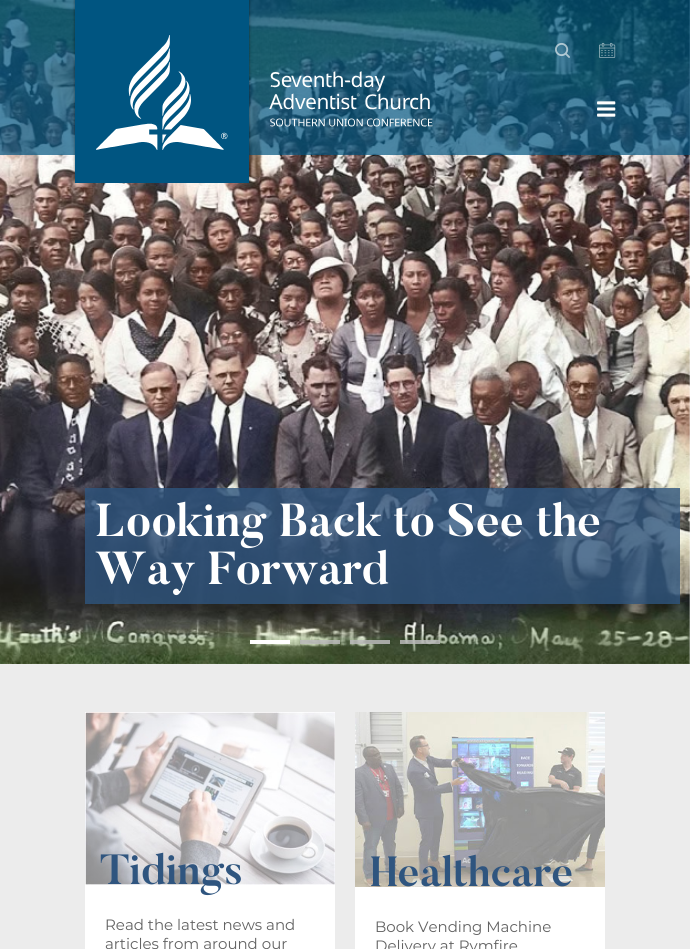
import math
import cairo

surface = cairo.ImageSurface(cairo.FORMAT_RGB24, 690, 949)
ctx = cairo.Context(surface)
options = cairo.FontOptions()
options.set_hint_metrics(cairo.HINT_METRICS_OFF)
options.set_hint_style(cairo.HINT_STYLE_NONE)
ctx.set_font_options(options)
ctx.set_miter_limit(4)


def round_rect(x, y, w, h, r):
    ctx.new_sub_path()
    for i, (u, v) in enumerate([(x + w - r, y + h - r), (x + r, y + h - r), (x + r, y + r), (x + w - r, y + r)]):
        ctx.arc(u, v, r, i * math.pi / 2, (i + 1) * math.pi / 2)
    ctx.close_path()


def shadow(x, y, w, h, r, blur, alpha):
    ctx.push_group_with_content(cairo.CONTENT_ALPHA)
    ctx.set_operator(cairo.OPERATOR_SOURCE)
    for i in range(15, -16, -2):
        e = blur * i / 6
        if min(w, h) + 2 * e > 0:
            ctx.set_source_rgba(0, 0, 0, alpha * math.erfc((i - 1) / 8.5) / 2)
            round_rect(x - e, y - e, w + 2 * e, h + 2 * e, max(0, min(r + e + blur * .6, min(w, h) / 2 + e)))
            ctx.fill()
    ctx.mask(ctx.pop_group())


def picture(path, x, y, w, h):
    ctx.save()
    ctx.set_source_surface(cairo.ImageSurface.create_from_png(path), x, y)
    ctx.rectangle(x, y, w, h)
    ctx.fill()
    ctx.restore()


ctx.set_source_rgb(1, 1, 1)
ctx.paint()
picture("img6.png", 0, 0, 690, 664)
ctx.set_source_rgba(0, 0.333, 0.506, 0.7)
ctx.rectangle(0, 0, 690, 155)
ctx.fill()
ctx.save()
ctx.rectangle(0, 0, 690, 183)
ctx.clip()
ctx.set_source_rgb(0, 0, 0)
shadow(75, 0, 174, 183, 0, 1.5, 0.5)
ctx.restore()
ctx.set_source_rgb(0, 0.333, 0.506)
ctx.rectangle(75, 0, 174, 183)
ctx.fill()
picture("img1.png", 96, 35, 132, 115)
picture("img2.png", 269, 71, 164, 56)
picture("img3.png", 555, 42, 15, 16)
picture("img4.png", 599, 42, 17, 16)
picture("img5.png", 597, 101, 19, 16)
ctx.set_source_rgba(0.184, 0.333, 0.498, 0.8)
ctx.rectangle(85, 488, 595, 116)
ctx.fill()
ctx.select_font_face("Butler", cairo.FONT_SLANT_NORMAL, cairo.FONT_WEIGHT_BOLD)
ctx.set_font_size(46)
ctx.set_source_rgb(1, 1, 1)
ctx.move_to(95, 536)
ctx.show_text("Looking Back to See the")
ctx.move_to(95, 584)
ctx.show_text("Way Forward")
ctx.rectangle(250, 640, 40, 4)
ctx.fill()
ctx.set_source_rgba(0.733, 0.733, 0.733, 0.84)
ctx.rectangle(300, 640, 40, 4)
ctx.fill()
ctx.rectangle(350, 640, 40, 4)
ctx.fill()
ctx.rectangle(400, 640, 40, 4)
ctx.fill()
ctx.set_source_rgb(0.925, 0.925, 0.925)
ctx.rectangle(0, 664, 690, 285)
ctx.fill()
ctx.set_source_rgb(1, 1, 1)
ctx.rectangle(85, 885, 250, 64)
ctx.fill()
picture("img7.png", 85, 712, 250, 173)
ctx.set_font_size(42)
ctx.set_source_rgb(0.184, 0.333, 0.498)
ctx.move_to(100, 884)
ctx.show_text("Tidings")
ctx.select_font_face("Montserrat")
ctx.set_font_size(15)
ctx.set_source_rgb(0.384, 0.384, 0.384)
ctx.move_to(105, 930)
ctx.show_text("Read the latest news and")
ctx.move_to(105, 949)
ctx.show_text("articles from around our")
ctx.set_source_rgb(1, 1, 1)
ctx.rectangle(355, 887, 250, 62)
ctx.fill()
picture("img8.png", 355, 712, 250, 175)
ctx.select_font_face("Butler", cairo.FONT_SLANT_NORMAL, cairo.FONT_WEIGHT_BOLD)
ctx.set_font_size(42)
ctx.set_source_rgb(0.184, 0.333, 0.498)
ctx.move_to(370, 886)
ctx.show_text("Healthcare")
ctx.select_font_face("Montserrat")
ctx.set_font_size(15)
ctx.set_source_rgb(0.384, 0.384, 0.384)
ctx.move_to(375, 932)
ctx.show_text("Book Vending Machine")
ctx.move_to(375, 951)
ctx.show_text("Delivery at Rymfire")
surface.write_to_png("page.png")
